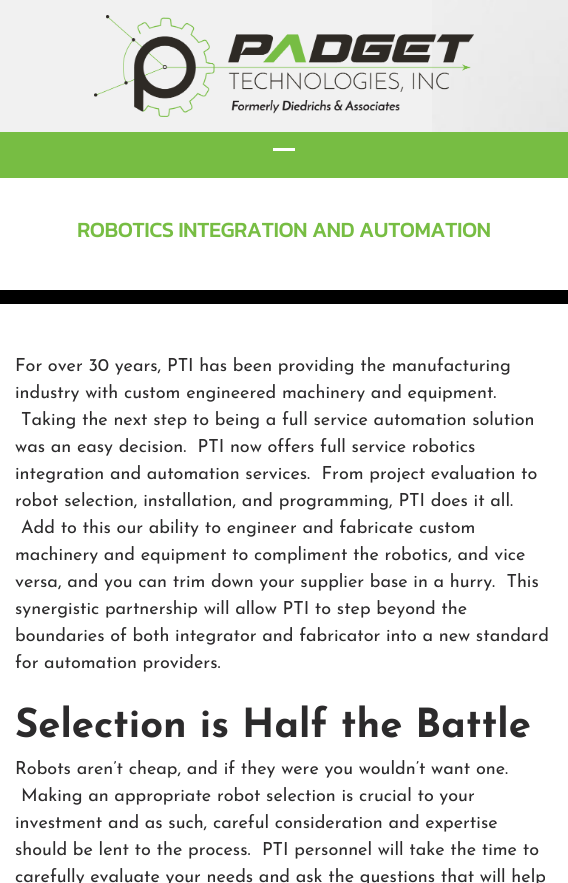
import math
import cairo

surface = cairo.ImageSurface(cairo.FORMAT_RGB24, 568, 883)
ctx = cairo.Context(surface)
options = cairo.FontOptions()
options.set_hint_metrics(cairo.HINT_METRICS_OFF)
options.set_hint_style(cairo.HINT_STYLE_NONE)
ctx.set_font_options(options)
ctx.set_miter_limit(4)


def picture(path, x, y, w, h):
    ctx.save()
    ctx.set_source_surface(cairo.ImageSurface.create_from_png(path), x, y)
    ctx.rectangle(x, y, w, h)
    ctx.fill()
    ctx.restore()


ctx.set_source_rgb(1, 1, 1)
ctx.paint()
ctx.set_source_rgb(0.945, 0.945, 0.945)
ctx.rectangle(0, 0, 432, 132)
ctx.fill()
picture("img1.png", 432, 0, 136, 132)
picture("img2.png", 94, 15, 380, 102)
ctx.set_source_rgb(0.467, 0.741, 0.263)
ctx.rectangle(0, 132, 568, 46)
ctx.fill()
ctx.set_source_rgb(1, 1, 1)
ctx.rectangle(273, 148, 22, 3)
ctx.fill()
ctx.set_source_rgb(0, 0, 0)
ctx.rectangle(0, 290, 568, 14)
ctx.fill()
ctx.select_font_face("Kanit", cairo.FONT_SLANT_NORMAL, cairo.FONT_WEIGHT_BOLD)
ctx.set_font_size(21)
ctx.set_source_rgb(0.467, 0.741, 0.263)
ctx.move_to(77, 237)
ctx.show_text("ROBOTICS INTEGRATION AND AUTOMATION")
ctx.select_font_face("Josefin Sans")
ctx.set_font_size(18)
ctx.set_source_rgb(0.173, 0.169, 0.173)
ctx.move_to(15, 371)
ctx.show_text("For over 30 years, PTI has been providing the manufacturing")
ctx.move_to(15, 398)
ctx.show_text("industry with custom engineered machinery and equipment.")
ctx.move_to(21, 425)
ctx.show_text("Taking the next step to being a full service automation solution")
ctx.move_to(15, 452)
ctx.show_text("was an easy decision.  PTI now offers full service robotics")
ctx.move_to(15, 479)
ctx.show_text("integration and automation services.  From project evaluation to")
ctx.move_to(15, 506)
ctx.show_text("robot selection, installation, and programming, PTI does it all.")
ctx.move_to(21, 533)
ctx.show_text("Add to this our ability to engineer and fabricate custom")
ctx.move_to(15, 560)
ctx.show_text("machinery and equipment to compliment the robotics, and vice")
ctx.move_to(15, 587)
ctx.show_text("versa, and you can trim down your supplier base in a hurry.  This")
ctx.move_to(15, 614)
ctx.show_text("synergistic partnership will allow PTI to step beyond the")
ctx.move_to(15, 641)
ctx.show_text("boundaries of both integrator and fabricator into a new standard")
ctx.move_to(15, 668)
ctx.show_text("for automation providers.")
ctx.select_font_face("Josefin Sans", cairo.FONT_SLANT_NORMAL, cairo.FONT_WEIGHT_BOLD)
ctx.set_font_size(40)
ctx.move_to(15, 737)
ctx.show_text("Selection is Half the Battle")
ctx.select_font_face("Josefin Sans")
ctx.set_font_size(18)
ctx.move_to(15, 774)
ctx.show_text("Robots aren’t cheap, and if they were you wouldn’t want one.")
ctx.move_to(21, 801)
ctx.show_text("Making an appropriate robot selection is crucial to your")
ctx.move_to(15, 828)
ctx.show_text("investment and as such, careful consideration and expertise")
ctx.move_to(15, 855)
ctx.show_text("should be lent to the process.  PTI personnel will take the time to")
ctx.move_to(15, 882)
ctx.show_text("carefully evaluate your needs and ask the questions that will help")
surface.write_to_png("page.png")
